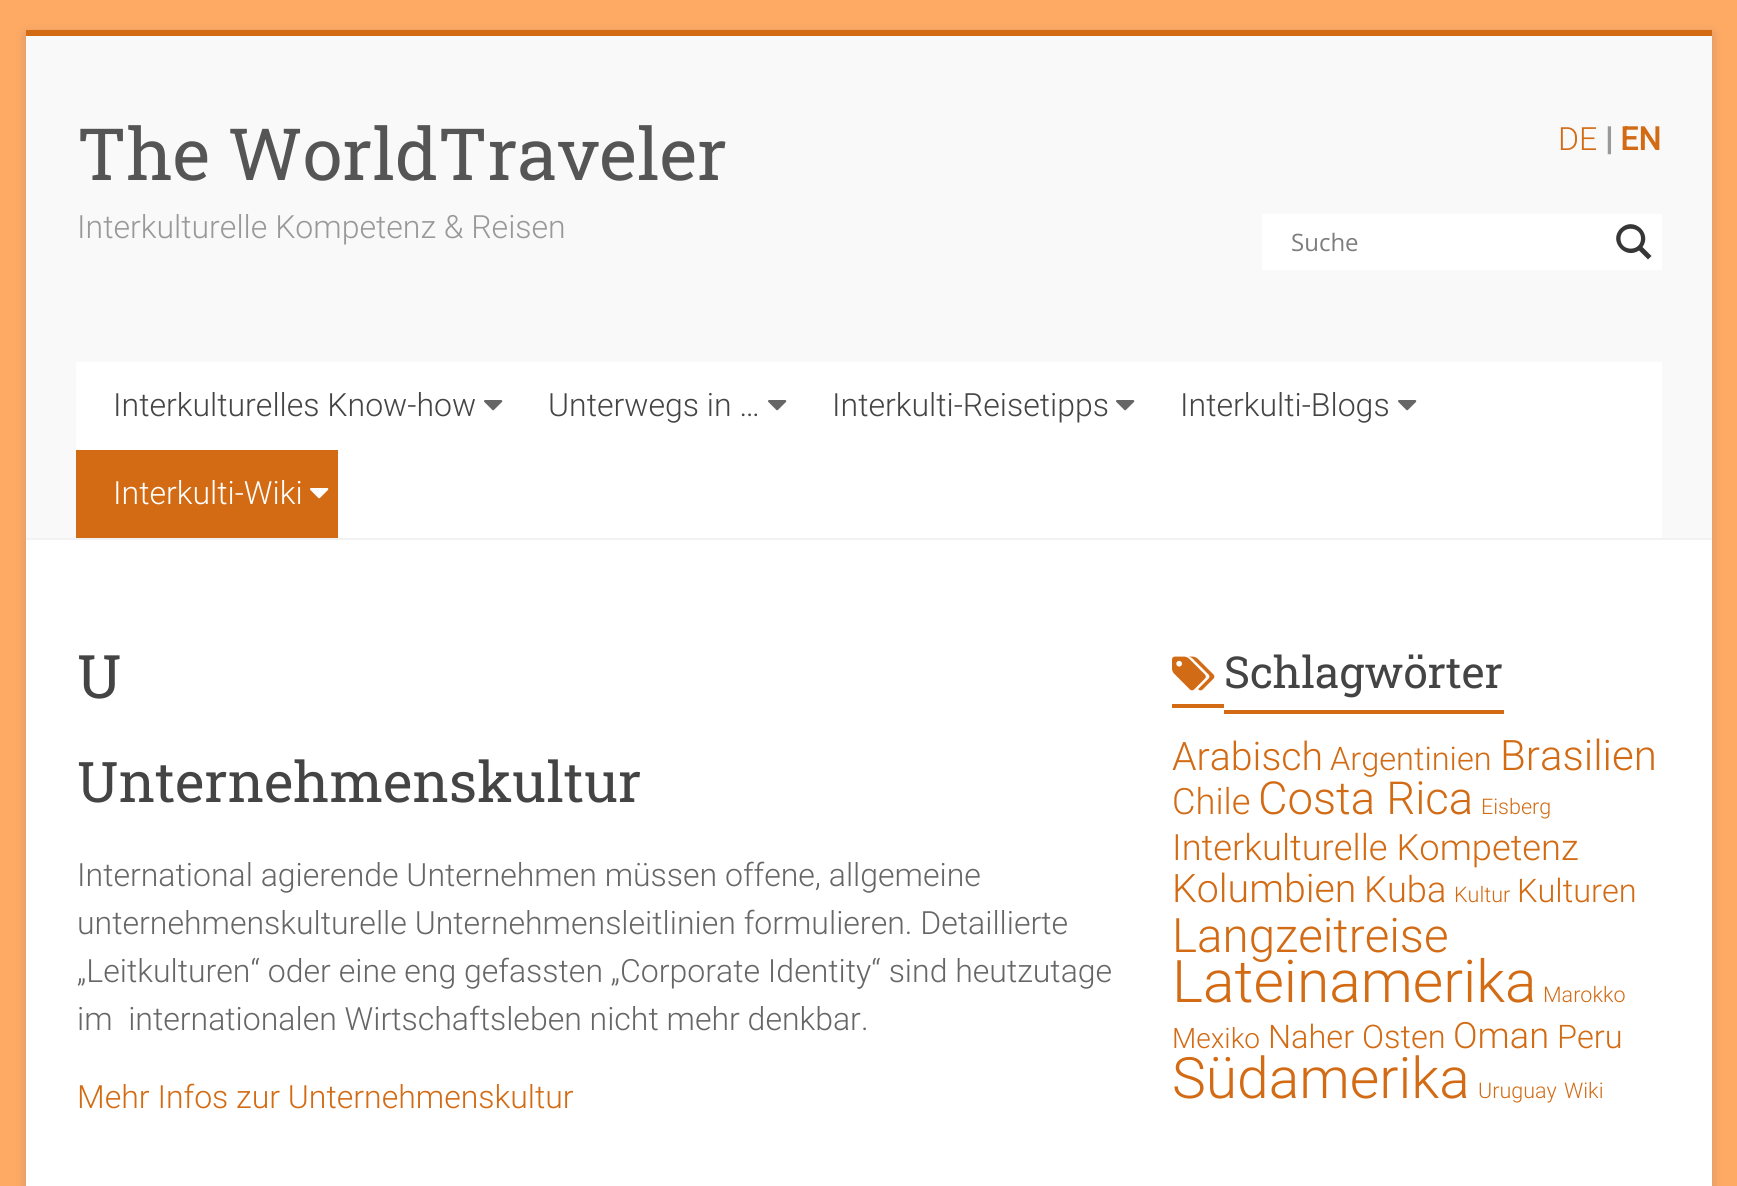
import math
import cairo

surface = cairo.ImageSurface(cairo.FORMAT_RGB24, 1737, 1186)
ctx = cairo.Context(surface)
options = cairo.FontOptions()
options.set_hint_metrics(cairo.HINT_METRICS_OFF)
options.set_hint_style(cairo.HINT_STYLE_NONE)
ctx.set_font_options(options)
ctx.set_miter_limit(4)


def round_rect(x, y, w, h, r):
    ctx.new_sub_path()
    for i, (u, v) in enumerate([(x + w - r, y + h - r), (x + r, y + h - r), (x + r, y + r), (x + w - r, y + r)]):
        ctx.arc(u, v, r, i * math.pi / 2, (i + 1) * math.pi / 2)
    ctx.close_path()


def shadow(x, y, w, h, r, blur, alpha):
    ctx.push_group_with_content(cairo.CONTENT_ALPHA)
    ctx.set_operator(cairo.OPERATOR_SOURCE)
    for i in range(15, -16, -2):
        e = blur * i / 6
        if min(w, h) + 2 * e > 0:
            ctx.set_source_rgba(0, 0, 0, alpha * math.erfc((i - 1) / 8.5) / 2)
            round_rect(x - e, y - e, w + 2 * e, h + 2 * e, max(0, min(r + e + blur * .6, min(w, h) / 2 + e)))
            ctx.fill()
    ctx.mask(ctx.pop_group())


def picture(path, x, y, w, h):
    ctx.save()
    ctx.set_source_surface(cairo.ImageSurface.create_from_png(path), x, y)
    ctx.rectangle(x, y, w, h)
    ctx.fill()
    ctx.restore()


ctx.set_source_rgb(1, 0.667, 0.392)
ctx.paint()
ctx.set_source_rgb(0.392, 0.392, 0.392)
shadow(26, 34, 1686, 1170, 0, 6, 0.3)
ctx.set_source_rgb(1, 1, 1)
ctx.rectangle(26, 540, 1686, 646)
ctx.fill()
ctx.set_source_rgb(0.824, 0.42, 0.082)
ctx.rectangle(26, 30, 1686, 6)
ctx.fill()
ctx.set_source_rgb(0.973, 0.973, 0.973)
ctx.rectangle(26, 36, 1686, 502)
ctx.fill()
ctx.set_source_rgb(0.949, 0.949, 0.949)
ctx.rectangle(26, 538, 1686, 2)
ctx.fill()
ctx.select_font_face("Roboto Slab")
ctx.set_font_size(72)
ctx.set_source_rgb(0.333, 0.333, 0.333)
ctx.move_to(77, 180)
ctx.show_text("The WorldTraveler")
ctx.select_font_face("Roboto Light")
ctx.set_font_size(32)
ctx.set_source_rgb(0.6, 0.6, 0.6)
ctx.move_to(77, 238)
ctx.show_text("Interkulturelle Kompetenz & Reisen")
ctx.set_source_rgb(0.824, 0.42, 0.082)
ctx.move_to(1558, 150)
ctx.show_text("DE")
ctx.select_font_face("Roboto", cairo.FONT_SLANT_NORMAL, cairo.FONT_WEIGHT_BOLD)
ctx.set_source_rgb(0.6, 0.6, 0.6)
ctx.move_to(1605, 150)
ctx.show_text("|")
ctx.set_source_rgb(0.824, 0.42, 0.082)
ctx.move_to(1620, 150)
ctx.show_text("EN")
ctx.set_source_rgb(1, 1, 1)
ctx.rectangle(1262, 214, 400, 56)
ctx.fill()
ctx.select_font_face("Open Sans")
ctx.set_font_size(24)
ctx.set_source_rgb(0.49, 0.49, 0.49)
ctx.move_to(1291, 251)
ctx.show_text("Suche")
ctx.set_source_rgb(0.212, 0.212, 0.212)
ctx.new_path()
ctx.move_to(1651.5, 256)
ctx.line_to(1642.5, 247)
ctx.curve_to(1652.5, 233, 1633.5, 216, 1620.5, 228.5)
ctx.curve_to(1608, 241, 1625, 260, 1639, 250.5)
ctx.line_to(1648, 259.5)
ctx.close_path()
ctx.move_to(1620.5, 238.5)
ctx.curve_to(1620.5, 225.5, 1641, 225.5, 1641, 238.5)
ctx.curve_to(1641, 252, 1620.5, 252, 1620.5, 238.5)
ctx.close_path()
ctx.fill()
ctx.set_source_rgb(1, 1, 1)
ctx.rectangle(76, 362, 1586, 176)
ctx.fill()
ctx.select_font_face("Roboto Light")
ctx.set_font_size(32)
ctx.set_source_rgb(0.267, 0.267, 0.267)
ctx.move_to(113, 416)
ctx.show_text("Interkulturelles Know-how")
picture("img1.png", 484, 400, 19, 11)
ctx.move_to(548, 416)
ctx.show_text("Unterwegs in …")
picture("img1.png", 768, 400, 19, 11)
ctx.move_to(832, 416)
ctx.show_text("Interkulti-Reisetipps")
picture("img1.png", 1116, 400, 19, 11)
ctx.move_to(1180, 416)
ctx.show_text("Interkulti-Blogs")
picture("img1.png", 1398, 400, 19, 11)
ctx.set_source_rgb(0.824, 0.42, 0.082)
ctx.rectangle(76, 450, 262, 88)
ctx.fill()
ctx.set_source_rgb(1, 1, 1)
ctx.move_to(113, 504)
ctx.show_text("Interkulti-Wiki")
picture("img2.png", 310, 488, 19, 11)
ctx.select_font_face("Roboto Slab")
ctx.set_font_size(60)
ctx.set_source_rgb(0.267, 0.267, 0.267)
ctx.move_to(77, 698)
ctx.show_text("U")
ctx.set_font_size(56)
ctx.move_to(77, 802)
ctx.show_text("Unternehmenskultur")
ctx.select_font_face("Roboto Light")
ctx.set_font_size(32)
ctx.set_source_rgb(0.4, 0.4, 0.4)
ctx.move_to(77, 886)
ctx.show_text("International agierende Unternehmen müssen offene, allgemeine")
ctx.move_to(77, 934)
ctx.show_text("unternehmenskulturelle Unternehmensleitlinien formulieren. Detaillierte")
ctx.move_to(77, 982)
ctx.show_text("„Leitkulturen“ oder eine eng gefassten „Corporate Identity“ sind heutzutage")
ctx.move_to(77, 1030)
ctx.show_text("im  internationalen Wirtschaftsleben nicht mehr denkbar.")
ctx.set_source_rgb(0.824, 0.42, 0.082)
ctx.move_to(77, 1108)
ctx.show_text("Mehr Infos zur Unternehmenskultur")
picture("img3.png", 1172, 656, 43, 35)
ctx.select_font_face("Roboto Slab")
ctx.set_font_size(44)
ctx.set_source_rgb(0.267, 0.267, 0.267)
ctx.move_to(1224, 688)
ctx.show_text("Schlagwörter")
ctx.set_source_rgb(0.824, 0.42, 0.082)
ctx.rectangle(1172, 704, 52, 4)
ctx.fill()
ctx.rectangle(1224, 710, 280, 4)
ctx.fill()
ctx.select_font_face("Roboto Light")
ctx.set_font_size(39.25)
ctx.move_to(1172, 770)
ctx.show_text("Arabisch")
ctx.set_font_size(32.5)
ctx.move_to(1330, 770)
ctx.show_text("Argentinien")
ctx.set_font_size(42)
ctx.move_to(1500, 770)
ctx.show_text("Brasilien")
ctx.set_font_size(36.25)
ctx.move_to(1172, 814)
ctx.show_text("Chile")
ctx.set_font_size(45.5)
ctx.move_to(1258, 814)
ctx.show_text("Costa Rica")
ctx.set_font_size(21.5)
ctx.move_to(1481, 814)
ctx.show_text("Eisberg")
ctx.set_font_size(36.25)
ctx.move_to(1172, 860)
ctx.show_text("Interkulturelle Kompetenz")
ctx.set_font_size(39.25)
ctx.move_to(1172, 902)
ctx.show_text("Kolumbien")
ctx.set_font_size(36.25)
ctx.move_to(1364, 902)
ctx.show_text("Kuba")
ctx.set_font_size(21.5)
ctx.move_to(1454, 902)
ctx.show_text("Kultur")
ctx.set_font_size(32.5)
ctx.move_to(1517, 902)
ctx.show_text("Kulturen")
ctx.set_font_size(47.5)
ctx.move_to(1172, 952)
ctx.show_text("Langzeitreise")
ctx.set_font_size(58.75)
ctx.move_to(1172, 1002)
ctx.show_text("Lateinamerika")
ctx.set_font_size(21.5)
ctx.move_to(1543, 1002)
ctx.show_text("Marokko")
ctx.set_font_size(28)
ctx.move_to(1172, 1048)
ctx.show_text("Mexiko")
ctx.set_font_size(32.5)
ctx.move_to(1268, 1048)
ctx.show_text("Naher Osten")
ctx.set_font_size(36.25)
ctx.move_to(1453, 1048)
ctx.show_text("Oman")
ctx.set_font_size(32.5)
ctx.move_to(1557, 1048)
ctx.show_text("Peru")
ctx.set_font_size(57)
ctx.move_to(1172, 1098)
ctx.show_text("Südamerika")
ctx.set_font_size(21.5)
ctx.move_to(1478, 1098)
ctx.show_text("Uruguay")
ctx.move_to(1564, 1098)
ctx.show_text("Wiki")
surface.write_to_png("page.png")
